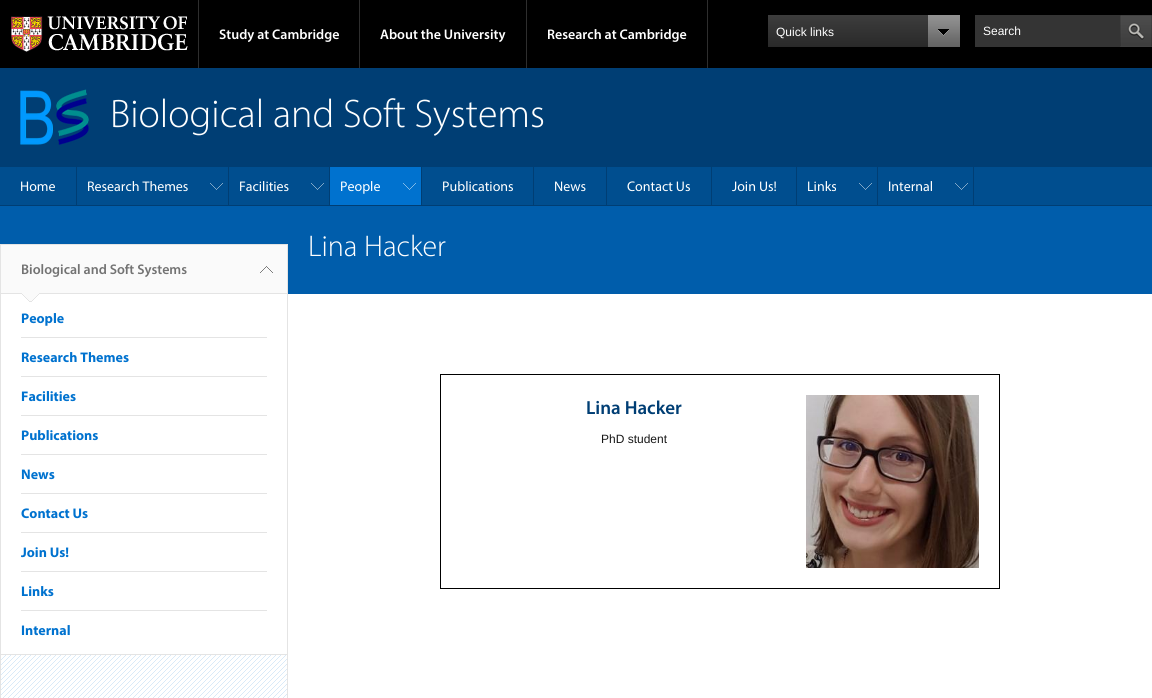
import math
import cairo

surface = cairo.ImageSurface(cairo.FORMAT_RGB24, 1152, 698)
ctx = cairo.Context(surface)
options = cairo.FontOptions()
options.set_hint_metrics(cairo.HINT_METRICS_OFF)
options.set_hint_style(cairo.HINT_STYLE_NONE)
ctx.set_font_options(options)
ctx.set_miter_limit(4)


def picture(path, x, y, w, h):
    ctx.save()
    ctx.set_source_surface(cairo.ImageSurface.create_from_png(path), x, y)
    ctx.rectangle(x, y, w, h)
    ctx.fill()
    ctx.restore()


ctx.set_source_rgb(0, 0, 0)
ctx.paint()
picture("img1.png", 11, 16, 177, 36)
ctx.set_source_rgb(0.18, 0.18, 0.18)
ctx.rectangle(198, 0, 1, 68)
ctx.fill()
ctx.rectangle(359, 0, 1, 68)
ctx.fill()
ctx.select_font_face("Myriad SemiBold")
ctx.set_font_size(14)
ctx.set_source_rgb(1, 1, 1)
ctx.move_to(219, 39)
ctx.show_text("Study at Cambridge")
ctx.set_source_rgb(0.18, 0.18, 0.18)
ctx.rectangle(526, 0, 1, 68)
ctx.fill()
ctx.set_source_rgb(1, 1, 1)
ctx.move_to(380, 39)
ctx.show_text("About the University")
ctx.set_source_rgb(0.18, 0.18, 0.18)
ctx.rectangle(707, 0, 1, 68)
ctx.fill()
ctx.set_source_rgb(1, 1, 1)
ctx.move_to(547, 39)
ctx.show_text("Research at Cambridge")
gradient = cairo.LinearGradient(864, 15, 864, 47)
gradient.add_color_stop_rgba(0, 0.239, 0.239, 0.239, 1)
gradient.add_color_stop_rgba(1, 0.161, 0.161, 0.161, 1)
ctx.set_source(gradient)
ctx.rectangle(768, 15, 160, 32)
ctx.fill()
ctx.select_font_face("Liberation Sans")
ctx.set_font_size(12)
ctx.set_source_rgb(1, 1, 1)
ctx.move_to(776, 36)
ctx.show_text("Quick links")
picture("img2.png", 928, 15, 32, 32)
ctx.set_source_rgb(0.204, 0.204, 0.204)
ctx.rectangle(975, 15, 145, 32)
ctx.fill()
ctx.set_source_rgb(1, 1, 1)
ctx.move_to(983, 35)
ctx.show_text("Search")
picture("img3.png", 1120, 15, 32, 32)
ctx.set_source_rgb(0, 0.243, 0.455)
ctx.rectangle(0, 68, 1152, 98)
ctx.fill()
picture("img4.png", 20, 89, 69, 56)
ctx.select_font_face("Myriad Light")
ctx.set_font_size(40)
ctx.set_source_rgb(1, 1, 1)
ctx.move_to(110, 127)
ctx.show_text("Biological and Soft Systems")
ctx.set_source_rgb(0, 0.306, 0.561)
ctx.rectangle(974, 167, 178, 38)
ctx.fill()
ctx.set_source_rgb(0, 0.243, 0.455)
ctx.rectangle(974, 166, 178, 1)
ctx.fill()
ctx.rectangle(974, 205, 178, 1)
ctx.fill()
ctx.set_source_rgb(0, 0.306, 0.561)
ctx.rectangle(0, 167, 76, 38)
ctx.fill()
ctx.set_source_rgb(0, 0.243, 0.455)
ctx.rectangle(0, 166, 330, 1)
ctx.fill()
ctx.rectangle(76, 166, 1, 40)
ctx.fill()
ctx.rectangle(0, 205, 77, 1)
ctx.fill()
ctx.select_font_face("Myriad")
ctx.set_font_size(14)
ctx.set_source_rgb(1, 1, 1)
ctx.move_to(20, 191)
ctx.show_text("Home")
ctx.set_source_rgb(0, 0.306, 0.561)
ctx.rectangle(77, 167, 151, 38)
ctx.fill()
picture("img5.png", 210, 183, 13, 7)
ctx.set_source_rgb(0, 0.243, 0.455)
ctx.rectangle(228, 166, 1, 40)
ctx.fill()
ctx.rectangle(77, 205, 152, 1)
ctx.fill()
ctx.set_source_rgb(1, 1, 1)
ctx.move_to(87, 191)
ctx.show_text("Research Themes")
ctx.set_source_rgb(0, 0.306, 0.561)
ctx.rectangle(229, 167, 100, 38)
ctx.fill()
picture("img5.png", 311, 183, 13, 7)
ctx.set_source_rgb(0, 0.243, 0.455)
ctx.rectangle(329, 166, 1, 40)
ctx.fill()
ctx.rectangle(229, 205, 101, 1)
ctx.fill()
ctx.set_source_rgb(1, 1, 1)
ctx.move_to(239, 191)
ctx.show_text("Facilities")
ctx.set_source_rgb(0, 0.447, 0.812)
ctx.rectangle(330, 167, 91, 38)
ctx.fill()
picture("img6.png", 403, 183, 13, 7)
ctx.set_source_rgb(0, 0.243, 0.455)
ctx.rectangle(330, 166, 644, 1)
ctx.fill()
ctx.rectangle(421, 166, 1, 40)
ctx.fill()
ctx.rectangle(330, 205, 92, 1)
ctx.fill()
ctx.set_source_rgb(1, 1, 1)
ctx.move_to(340, 191)
ctx.show_text("People")
ctx.set_source_rgb(0, 0.306, 0.561)
ctx.rectangle(422, 167, 111, 38)
ctx.fill()
ctx.set_source_rgb(0, 0.243, 0.455)
ctx.rectangle(533, 166, 1, 40)
ctx.fill()
ctx.rectangle(422, 205, 112, 1)
ctx.fill()
ctx.set_source_rgb(1, 1, 1)
ctx.move_to(442, 191)
ctx.show_text("Publications")
ctx.set_source_rgb(0, 0.306, 0.561)
ctx.rectangle(534, 167, 72, 38)
ctx.fill()
ctx.set_source_rgb(0, 0.243, 0.455)
ctx.rectangle(606, 166, 1, 40)
ctx.fill()
ctx.rectangle(534, 205, 73, 1)
ctx.fill()
ctx.set_source_rgb(1, 1, 1)
ctx.move_to(554, 191)
ctx.show_text("News")
ctx.set_source_rgb(0, 0.306, 0.561)
ctx.rectangle(607, 167, 104, 38)
ctx.fill()
ctx.set_source_rgb(0, 0.243, 0.455)
ctx.rectangle(711, 166, 1, 40)
ctx.fill()
ctx.rectangle(607, 205, 105, 1)
ctx.fill()
ctx.set_source_rgb(1, 1, 1)
ctx.move_to(627, 191)
ctx.show_text("Contact Us")
ctx.set_source_rgb(0, 0.306, 0.561)
ctx.rectangle(712, 167, 84, 38)
ctx.fill()
ctx.set_source_rgb(0, 0.243, 0.455)
ctx.rectangle(796, 166, 1, 40)
ctx.fill()
ctx.rectangle(712, 205, 85, 1)
ctx.fill()
ctx.set_source_rgb(1, 1, 1)
ctx.move_to(732, 191)
ctx.show_text("Join Us!")
ctx.set_source_rgb(0, 0.306, 0.561)
ctx.rectangle(797, 167, 80, 38)
ctx.fill()
picture("img5.png", 859, 183, 13, 7)
ctx.set_source_rgb(0, 0.243, 0.455)
ctx.rectangle(877, 166, 1, 40)
ctx.fill()
ctx.rectangle(797, 205, 81, 1)
ctx.fill()
ctx.set_source_rgb(1, 1, 1)
ctx.move_to(807, 191)
ctx.show_text("Links")
ctx.set_source_rgb(0, 0.306, 0.561)
ctx.rectangle(878, 167, 95, 38)
ctx.fill()
picture("img5.png", 955, 183, 13, 7)
ctx.set_source_rgb(0, 0.243, 0.455)
ctx.rectangle(973, 166, 1, 40)
ctx.fill()
ctx.rectangle(878, 205, 96, 1)
ctx.fill()
ctx.set_source_rgb(1, 1, 1)
ctx.move_to(888, 191)
ctx.show_text("Internal")
ctx.set_source_rgb(0, 0.365, 0.671)
ctx.rectangle(0, 206, 1152, 88)
ctx.fill()
ctx.select_font_face("Myriad Light")
ctx.set_font_size(30)
ctx.set_source_rgb(1, 1, 1)
ctx.move_to(308, 256)
ctx.show_text("Lina Hacker")
ctx.rectangle(1, 294, 1151, 404)
ctx.fill()
picture("img7.png", 1, 655, 286, 43)
ctx.set_source_rgb(0.894, 0.894, 0.894)
ctx.rectangle(0, 244, 288, 1)
ctx.fill()
ctx.rectangle(287, 244, 1, 454)
ctx.fill()
ctx.rectangle(0, 244, 1, 454)
ctx.fill()
ctx.rectangle(1, 654, 286, 1)
ctx.fill()
ctx.set_source_rgb(0.98, 0.98, 0.98)
ctx.rectangle(1, 245, 286, 48)
ctx.fill()
picture("img8.png", 260, 266, 13, 7)
ctx.set_source_rgb(0.894, 0.894, 0.894)
ctx.rectangle(1, 293, 286, 1)
ctx.fill()
ctx.select_font_face("Myriad SemiBold")
ctx.set_font_size(14)
ctx.set_source_rgb(0.451, 0.451, 0.451)
ctx.move_to(21, 274)
ctx.show_text("Biological and Soft Systems")
picture("img9.png", 22, 293, 17, 9)
ctx.set_source_rgb(0.894, 0.894, 0.894)
ctx.rectangle(21, 337, 246, 1)
ctx.fill()
ctx.select_font_face("Myriad", cairo.FONT_SLANT_NORMAL, cairo.FONT_WEIGHT_BOLD)
ctx.set_source_rgb(0, 0.447, 0.812)
ctx.move_to(21, 323)
ctx.show_text("People")
ctx.set_source_rgb(0.894, 0.894, 0.894)
ctx.rectangle(21, 376, 246, 1)
ctx.fill()
ctx.set_source_rgb(0, 0.447, 0.812)
ctx.move_to(21, 362)
ctx.show_text("Research Themes")
ctx.set_source_rgb(0.894, 0.894, 0.894)
ctx.rectangle(21, 415, 246, 1)
ctx.fill()
ctx.set_source_rgb(0, 0.447, 0.812)
ctx.move_to(21, 401)
ctx.show_text("Facilities")
ctx.set_source_rgb(0.894, 0.894, 0.894)
ctx.rectangle(21, 454, 246, 1)
ctx.fill()
ctx.set_source_rgb(0, 0.447, 0.812)
ctx.move_to(21, 440)
ctx.show_text("Publications")
ctx.set_source_rgb(0.894, 0.894, 0.894)
ctx.rectangle(21, 493, 246, 1)
ctx.fill()
ctx.set_source_rgb(0, 0.447, 0.812)
ctx.move_to(21, 479)
ctx.show_text("News")
ctx.set_source_rgb(0.894, 0.894, 0.894)
ctx.rectangle(21, 532, 246, 1)
ctx.fill()
ctx.set_source_rgb(0, 0.447, 0.812)
ctx.move_to(21, 518)
ctx.show_text("Contact Us")
ctx.set_source_rgb(0.894, 0.894, 0.894)
ctx.rectangle(21, 571, 246, 1)
ctx.fill()
ctx.set_source_rgb(0, 0.447, 0.812)
ctx.move_to(21, 557)
ctx.show_text("Join Us!")
ctx.set_source_rgb(0.894, 0.894, 0.894)
ctx.rectangle(21, 610, 246, 1)
ctx.fill()
ctx.set_source_rgb(0, 0.447, 0.812)
ctx.move_to(21, 596)
ctx.show_text("Links")
ctx.move_to(21, 635)
ctx.show_text("Internal")
ctx.rectangle(440.5, 374.5, 559, 214)
ctx.set_source_rgb(0, 0, 0)
ctx.set_line_width(1)
ctx.stroke()
ctx.select_font_face("Myriad SemiBold")
ctx.set_font_size(19)
ctx.set_source_rgb(0, 0.243, 0.455)
ctx.move_to(586, 414)
ctx.show_text("Lina Hacker")
ctx.select_font_face("Liberation Sans")
ctx.set_font_size(12)
ctx.set_source_rgb(0.09, 0.09, 0.09)
ctx.move_to(601, 443)
ctx.show_text("PhD student")
picture("img10.png", 806, 395, 173, 173)
surface.write_to_png("page.png")
